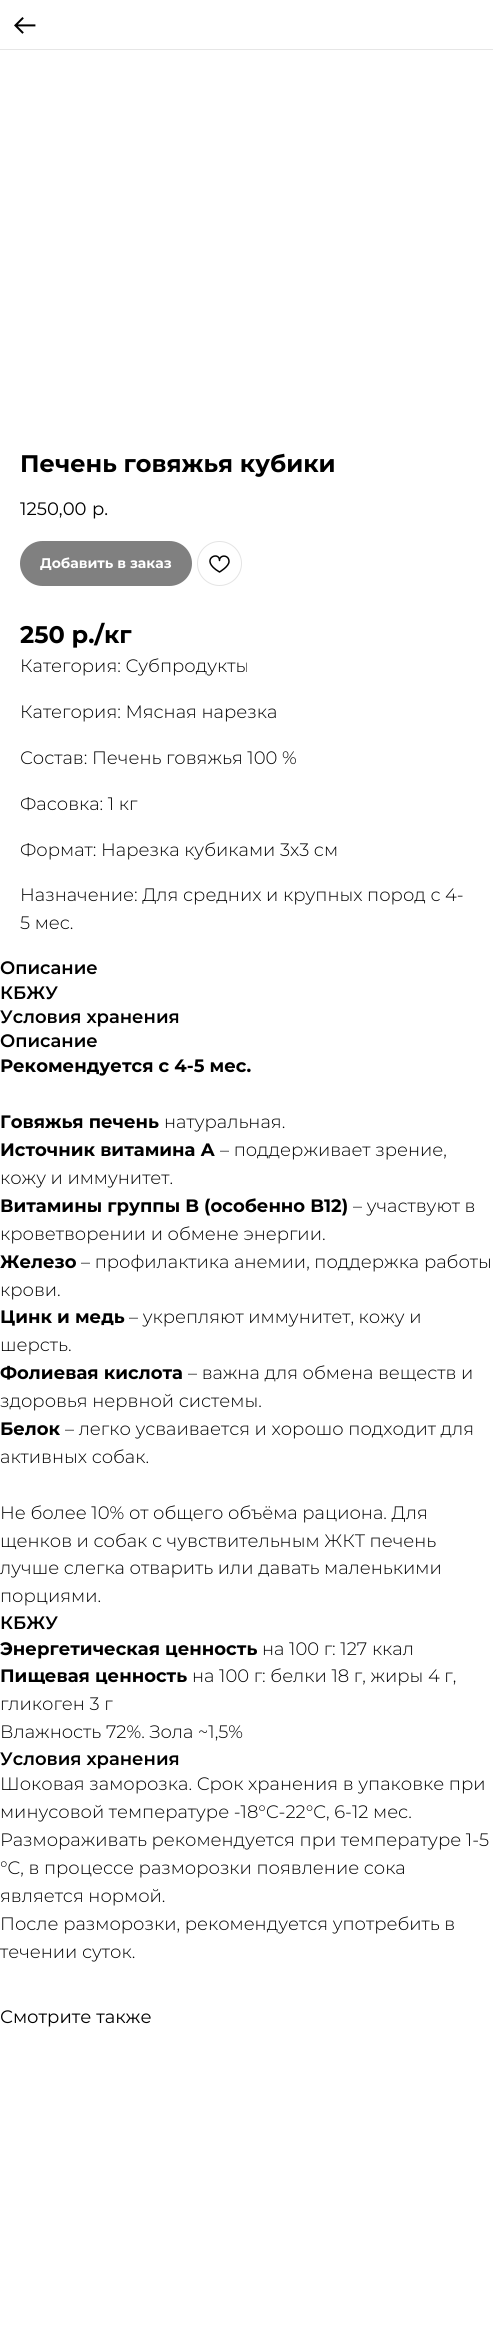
import math
import cairo

surface = cairo.ImageSurface(cairo.FORMAT_RGB24, 493, 2338)
ctx = cairo.Context(surface)
options = cairo.FontOptions()
options.set_hint_metrics(cairo.HINT_METRICS_OFF)
options.set_hint_style(cairo.HINT_STYLE_NONE)
ctx.set_font_options(options)
ctx.set_miter_limit(4)


def round_rect(x, y, w, h, r):
    ctx.new_sub_path()
    for i, (u, v) in enumerate([(x + w - r, y + h - r), (x + r, y + h - r), (x + r, y + r), (x + w - r, y + r)]):
        ctx.arc(u, v, r, i * math.pi / 2, (i + 1) * math.pi / 2)
    ctx.close_path()


def picture(path, x, y, w, h):
    ctx.save()
    ctx.set_source_surface(cairo.ImageSurface.create_from_png(path), x, y)
    ctx.rectangle(x, y, w, h)
    ctx.fill()
    ctx.restore()


ctx.set_source_rgb(1, 1, 1)
ctx.paint()
ctx.set_source_rgb(0.902, 0.902, 0.902)
ctx.rectangle(0, 49, 493, 1)
ctx.fill()
picture("img1.png", 14, 17, 22, 17)
ctx.select_font_face("Montserrat", cairo.FONT_SLANT_NORMAL, cairo.FONT_WEIGHT_BOLD)
ctx.set_font_size(24)
ctx.set_source_rgb(0, 0, 0)
ctx.move_to(20, 472)
ctx.show_text("Печень говяжья кубики")
ctx.select_font_face("Montserrat")
ctx.set_font_size(18)
ctx.move_to(20, 515)
ctx.show_text("1250,00")
ctx.move_to(92, 515)
ctx.show_text("р.")
ctx.set_source_rgb(0.502, 0.502, 0.502)
round_rect(20, 541, 172, 45, 22.5)
ctx.fill()
ctx.select_font_face("Montserrat", cairo.FONT_SLANT_NORMAL, cairo.FONT_WEIGHT_BOLD)
ctx.set_font_size(14)
ctx.set_source_rgb(1, 1, 1)
ctx.move_to(40, 568)
ctx.show_text("Добавить в заказ")
ctx.new_path()
ctx.arc(219.5, 563.5, 22, 0, 2 * math.pi)
ctx.set_source_rgb(0.894, 0.894, 0.894)
ctx.set_line_width(1)
ctx.stroke()
ctx.new_path()
ctx.move_to(229, 561.5)
ctx.curve_to(229, 566.5, 219.5, 572, 219.5, 572)
ctx.curve_to(198, 559.5, 219.5, 550, 219.5, 560.5)
ctx.curve_to(219.5, 554.5, 229, 554.5, 229, 561.5)
ctx.close_path()
ctx.set_source_rgb(0, 0, 0)
ctx.set_line_width(1.5)
ctx.set_line_join(cairo.LINE_JOIN_ROUND)
ctx.stroke()
ctx.set_font_size(24)
ctx.move_to(20, 643)
ctx.show_text("250 р./кг")
ctx.select_font_face("Montserrat Light")
ctx.set_font_size(18)
ctx.move_to(20, 672)
ctx.show_text("Категория: Субпродукты")
ctx.move_to(20, 718)
ctx.show_text("Категория: Мясная нарезка")
ctx.move_to(20, 764)
ctx.show_text("Состав: Печень говяжья 100 %")
ctx.move_to(20, 810)
ctx.show_text("Фасовка: 1 кг")
ctx.move_to(20, 856)
ctx.show_text("Формат: Нарезка кубиками 3х3 см")
ctx.move_to(20, 901)
ctx.show_text("Назначение: Для средних и крупных пород с 4-")
ctx.move_to(20, 929)
ctx.show_text("5 мес.")
ctx.select_font_face("Montserrat SemiBold")
ctx.move_to(0, 974)
ctx.show_text("Описание")
ctx.move_to(0, 999)
ctx.show_text("КБЖУ")
ctx.move_to(0, 1023)
ctx.show_text("Условия хранения")
ctx.move_to(0, 1047)
ctx.show_text("Описание")
ctx.select_font_face("Montserrat", cairo.FONT_SLANT_NORMAL, cairo.FONT_WEIGHT_BOLD)
ctx.move_to(0, 1072)
ctx.show_text("Рекомендуется с 4-5 мес.")
ctx.move_to(0, 1128)
ctx.show_text("Говяжья печень")
ctx.select_font_face("Montserrat Light")
ctx.move_to(164, 1128)
ctx.show_text("натуральная.")
ctx.select_font_face("Montserrat", cairo.FONT_SLANT_NORMAL, cairo.FONT_WEIGHT_BOLD)
ctx.move_to(0, 1156)
ctx.show_text("Источник витамина А")
ctx.select_font_face("Montserrat Light")
ctx.move_to(220, 1156)
ctx.show_text("– поддерживает зрение,")
ctx.move_to(0, 1184)
ctx.show_text("кожу и иммунитет.")
ctx.select_font_face("Montserrat", cairo.FONT_SLANT_NORMAL, cairo.FONT_WEIGHT_BOLD)
ctx.move_to(0, 1212)
ctx.show_text("Витамины группы B (особенно B12)")
ctx.select_font_face("Montserrat Light")
ctx.move_to(353, 1212)
ctx.show_text("– участвуют в")
ctx.move_to(0, 1240)
ctx.show_text("кроветворении и обмене энергии.")
ctx.select_font_face("Montserrat", cairo.FONT_SLANT_NORMAL, cairo.FONT_WEIGHT_BOLD)
ctx.move_to(0, 1268)
ctx.show_text("Железо")
ctx.select_font_face("Montserrat Light")
ctx.move_to(81, 1268)
ctx.show_text("– профилактика анемии, поддержка работы")
ctx.move_to(0, 1296)
ctx.show_text("крови.")
ctx.select_font_face("Montserrat", cairo.FONT_SLANT_NORMAL, cairo.FONT_WEIGHT_BOLD)
ctx.move_to(0, 1323)
ctx.show_text("Цинк и медь")
ctx.select_font_face("Montserrat Light")
ctx.move_to(129, 1323)
ctx.show_text("– укрепляют иммунитет, кожу и")
ctx.move_to(0, 1351)
ctx.show_text("шерсть.")
ctx.select_font_face("Montserrat", cairo.FONT_SLANT_NORMAL, cairo.FONT_WEIGHT_BOLD)
ctx.move_to(0, 1379)
ctx.show_text("Фолиевая кислота")
ctx.select_font_face("Montserrat Light")
ctx.move_to(188, 1379)
ctx.show_text("– важна для обмена веществ и")
ctx.move_to(0, 1407)
ctx.show_text("здоровья нервной системы.")
ctx.select_font_face("Montserrat", cairo.FONT_SLANT_NORMAL, cairo.FONT_WEIGHT_BOLD)
ctx.move_to(0, 1435)
ctx.show_text("Белок")
ctx.select_font_face("Montserrat Light")
ctx.move_to(65, 1435)
ctx.show_text("– легко усваивается и хорошо подходит для")
ctx.move_to(0, 1463)
ctx.show_text("активных собак.")
ctx.move_to(0, 1519)
ctx.show_text("Не более 10% от общего объёма рациона. Для")
ctx.move_to(0, 1547)
ctx.show_text("щенков и собак с чувствительным ЖКТ печень")
ctx.move_to(0, 1574)
ctx.show_text("лучше слегка отварить или давать маленькими")
ctx.move_to(0, 1602)
ctx.show_text("порциями.")
ctx.select_font_face("Montserrat SemiBold")
ctx.move_to(0, 1629)
ctx.show_text("КБЖУ")
ctx.select_font_face("Montserrat", cairo.FONT_SLANT_NORMAL, cairo.FONT_WEIGHT_BOLD)
ctx.move_to(0, 1655)
ctx.show_text("Энергетическая ценность")
ctx.select_font_face("Montserrat Light")
ctx.move_to(262, 1655)
ctx.show_text("на 100 г: 127 ккал")
ctx.select_font_face("Montserrat", cairo.FONT_SLANT_NORMAL, cairo.FONT_WEIGHT_BOLD)
ctx.move_to(0, 1682)
ctx.show_text("Пищевая ценность")
ctx.select_font_face("Montserrat Light")
ctx.move_to(192, 1682)
ctx.show_text("на 100 г: белки 18 г, жиры 4 г,")
ctx.move_to(0, 1710)
ctx.show_text("гликоген 3 г")
ctx.move_to(0, 1738)
ctx.show_text("Влажность 72%. Зола ~1,5%")
ctx.select_font_face("Montserrat SemiBold")
ctx.move_to(0, 1765)
ctx.show_text("Условия хранения")
ctx.select_font_face("Montserrat Light")
ctx.move_to(0, 1790)
ctx.show_text("Шоковая заморозка. Срок хранения в упаковке при")
ctx.move_to(0, 1818)
ctx.show_text("минусовой температуре -18°C-22°C, 6-12 мес.")
ctx.move_to(0, 1846)
ctx.show_text("Размораживать рекомендуется при температуре 1-5")
ctx.move_to(0, 1874)
ctx.show_text("°C, в процессе разморозки появление сока")
ctx.move_to(0, 1902)
ctx.show_text("является нормой.")
ctx.move_to(0, 1930)
ctx.show_text("После разморозки, рекомендуется употребить в")
ctx.move_to(0, 1958)
ctx.show_text("течении суток.")
ctx.select_font_face("Montserrat")
ctx.move_to(0, 2023)
ctx.show_text("Смотрите также")
surface.write_to_png("page.png")
